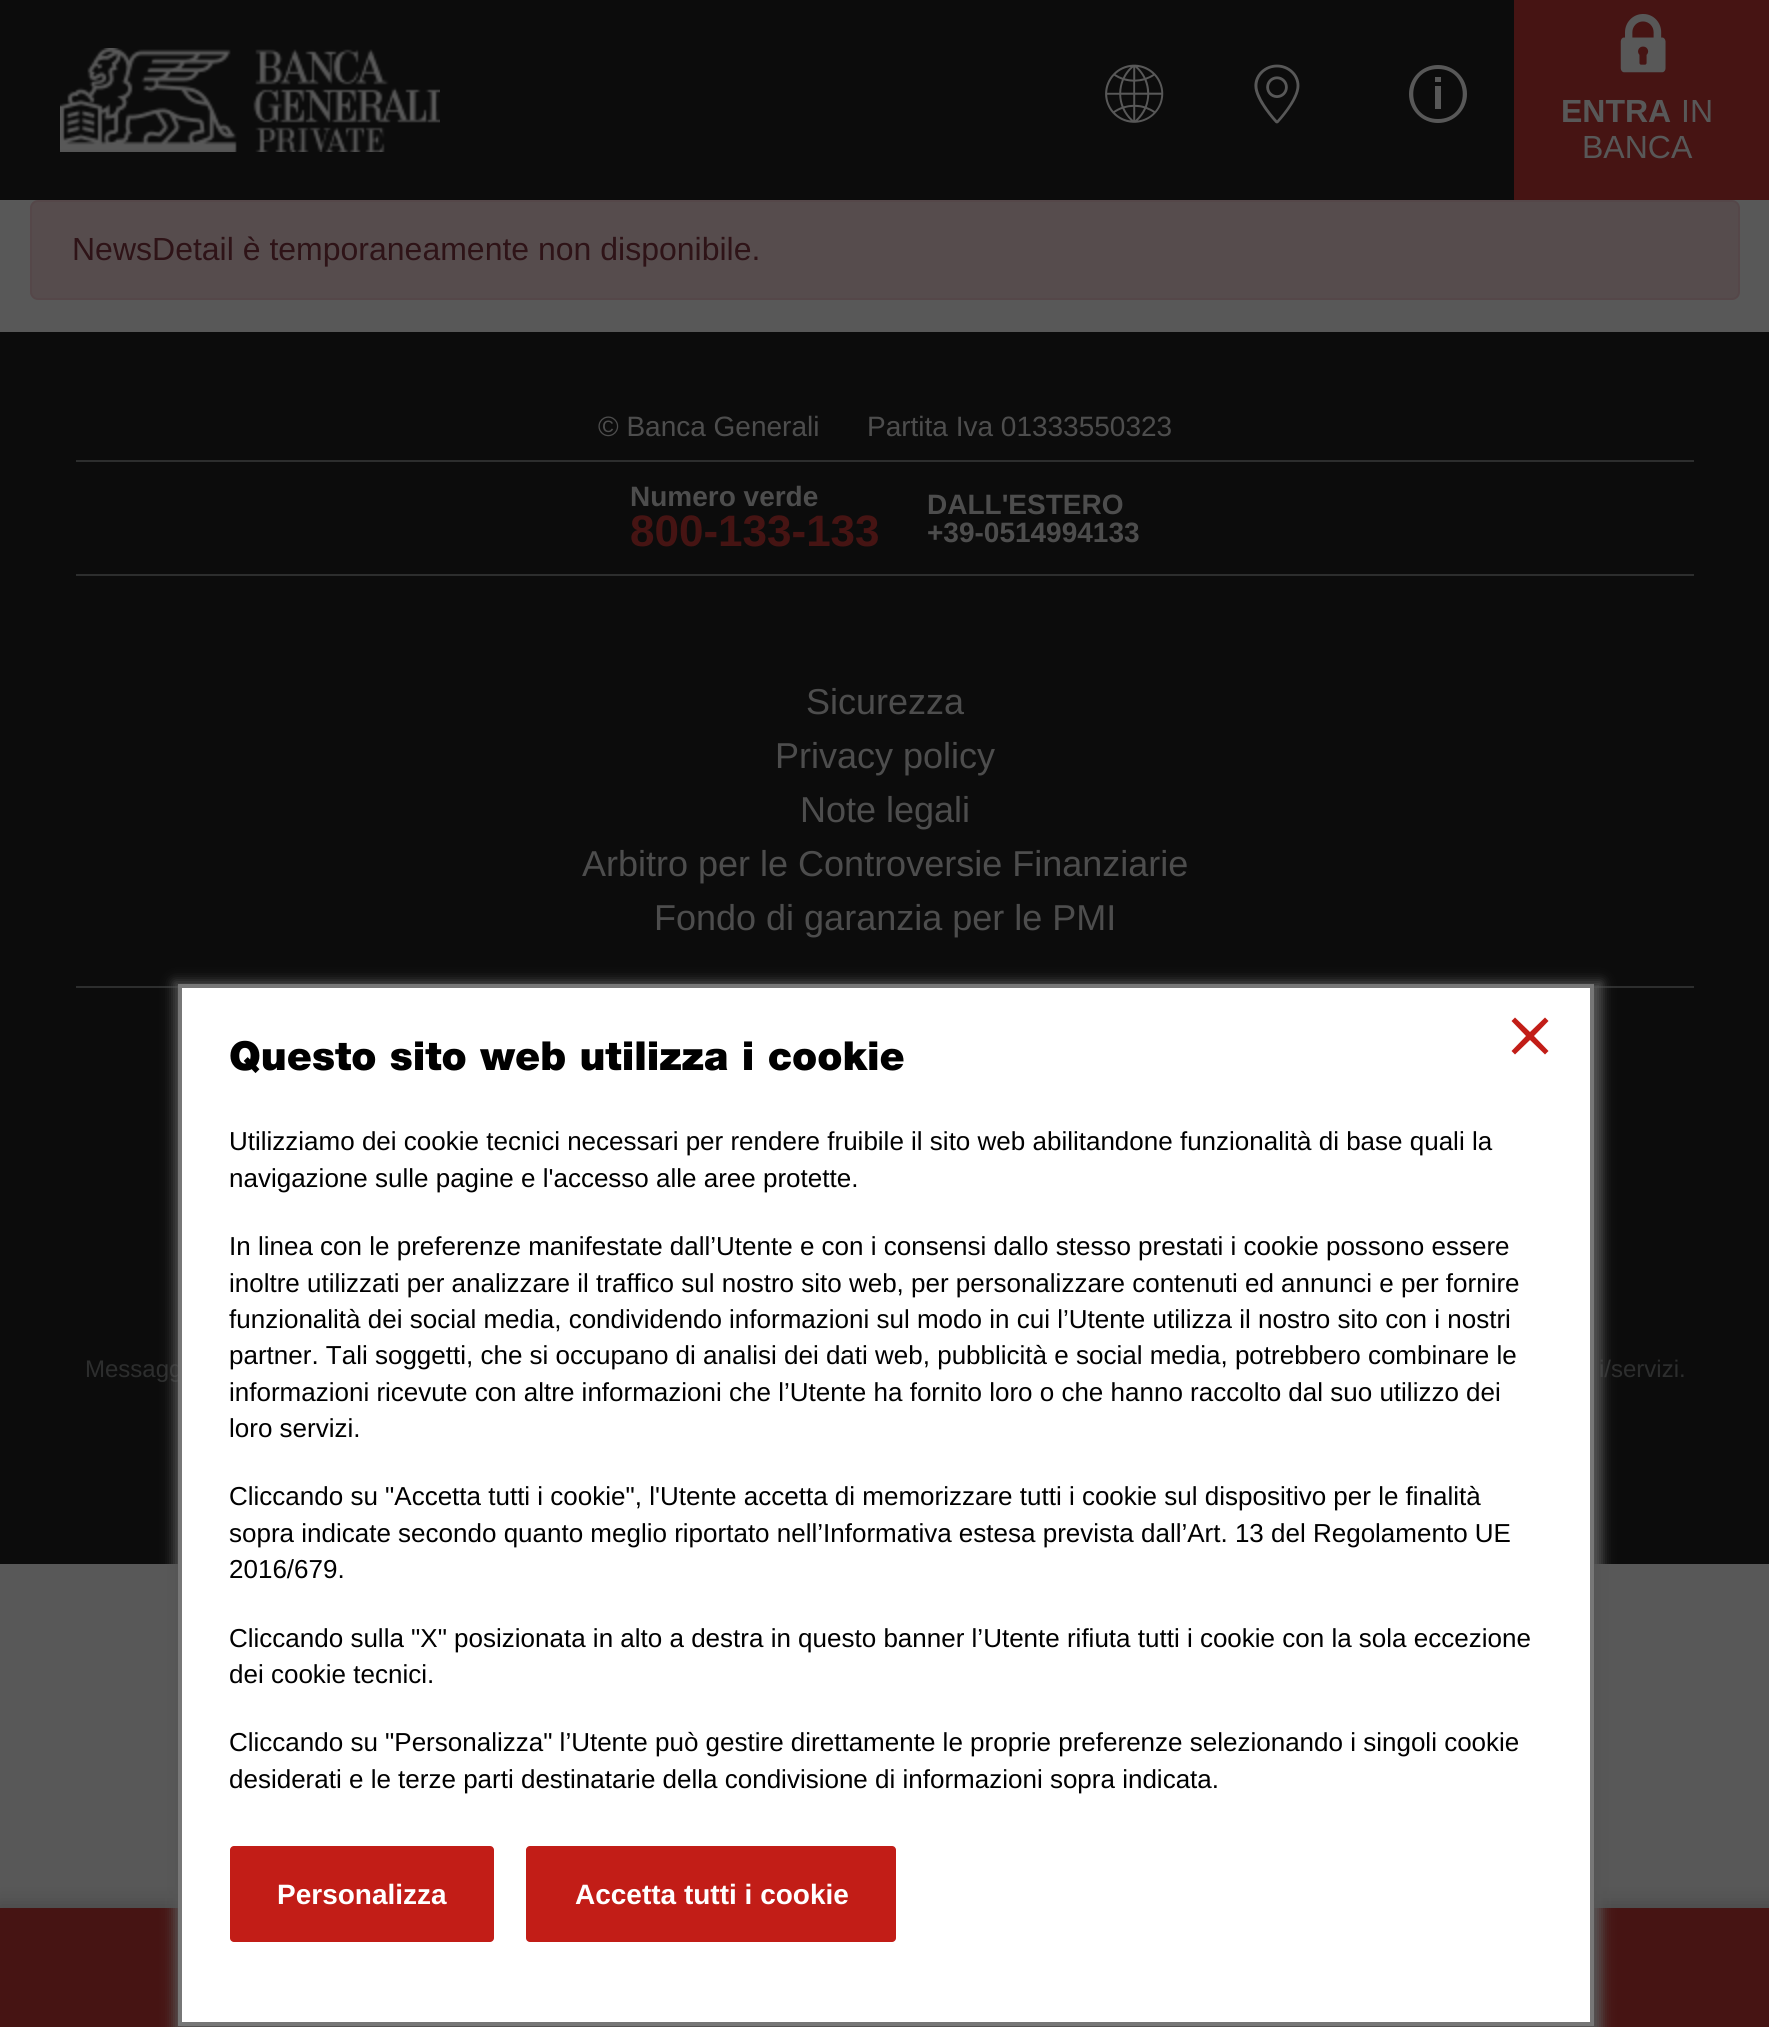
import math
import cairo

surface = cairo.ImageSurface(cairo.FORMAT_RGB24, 1769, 2027)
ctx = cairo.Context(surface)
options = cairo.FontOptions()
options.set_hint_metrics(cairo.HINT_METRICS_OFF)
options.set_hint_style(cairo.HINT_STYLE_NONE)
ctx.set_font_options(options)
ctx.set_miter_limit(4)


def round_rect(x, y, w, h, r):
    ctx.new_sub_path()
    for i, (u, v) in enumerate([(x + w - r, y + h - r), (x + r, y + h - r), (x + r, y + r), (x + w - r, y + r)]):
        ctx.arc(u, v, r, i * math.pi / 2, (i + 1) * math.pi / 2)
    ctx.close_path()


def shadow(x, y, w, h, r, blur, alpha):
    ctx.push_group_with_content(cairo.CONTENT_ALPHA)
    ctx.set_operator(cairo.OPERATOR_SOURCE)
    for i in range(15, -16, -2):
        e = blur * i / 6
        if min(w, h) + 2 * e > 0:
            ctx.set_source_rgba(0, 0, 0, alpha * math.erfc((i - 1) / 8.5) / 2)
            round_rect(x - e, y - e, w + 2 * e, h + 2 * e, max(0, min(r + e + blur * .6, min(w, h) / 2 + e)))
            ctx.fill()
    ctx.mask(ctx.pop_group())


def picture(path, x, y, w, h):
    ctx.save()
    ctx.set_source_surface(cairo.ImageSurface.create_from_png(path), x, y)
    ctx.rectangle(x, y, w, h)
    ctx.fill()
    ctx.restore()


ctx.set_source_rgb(0.345, 0.345, 0.345)
ctx.paint()
ctx.set_source_rgb(0.047, 0.047, 0.047)
ctx.rectangle(0, 0, 1514, 200)
ctx.fill()
picture("img1.png", 60, 48, 380, 104)
picture("img2.png", 1105, 64, 59, 59)
picture("img3.png", 1254, 64, 46, 60)
ctx.set_source_rgb(0.345, 0.345, 0.345)
ctx.new_path()
ctx.move_to(1438, 123)
ctx.curve_to(1422, 123, 1409, 110, 1409, 94)
ctx.curve_to(1409, 78, 1422, 65, 1438, 65)
ctx.curve_to(1454, 65, 1467, 78, 1467, 94)
ctx.curve_to(1467, 110, 1454, 123, 1438, 123)
ctx.close_path()
ctx.move_to(1438, 69)
ctx.curve_to(1405, 69, 1405, 119, 1438, 119)
ctx.curve_to(1471, 119, 1471, 69, 1438, 69)
ctx.close_path()
ctx.fill()
ctx.rectangle(1435, 77, 6, 5)
ctx.fill()
ctx.rectangle(1435, 86, 6, 23)
ctx.fill()
ctx.set_source_rgb(0.275, 0.082, 0.075)
ctx.rectangle(1514, 0, 255, 200)
ctx.fill()
picture("img4.png", 1620, 14, 46, 59)
ctx.select_font_face("Liberation Sans", cairo.FONT_SLANT_NORMAL, cairo.FONT_WEIGHT_BOLD)
ctx.set_font_size(32)
ctx.set_source_rgb(0.345, 0.345, 0.345)
ctx.move_to(1561, 122)
ctx.show_text("ENTRA")
ctx.select_font_face("Liberation Sans")
ctx.move_to(1681, 122)
ctx.show_text("IN")
ctx.move_to(1582, 158)
ctx.show_text("BANCA")
ctx.set_source_rgb(0.337, 0.298, 0.302)
round_rect(31, 201, 1708, 98, 7)
ctx.fill_preserve()
ctx.set_source_rgb(0.333, 0.278, 0.286)
ctx.stroke()
ctx.set_source_rgb(0.18, 0.078, 0.09)
ctx.move_to(72, 260)
ctx.show_text("NewsDetail è temporaneamente non disponibile.")
ctx.set_source_rgb(0.047, 0.047, 0.047)
ctx.rectangle(0, 332, 1769, 1232)
ctx.fill()
ctx.set_font_size(28)
ctx.set_source_rgb(0.302, 0.302, 0.302)
ctx.move_to(598, 436)
ctx.show_text("© Banca Generali")
ctx.move_to(867, 436)
ctx.show_text("Partita Iva 01333550323")
ctx.set_source_rgb(0.176, 0.18, 0.18)
ctx.rectangle(76, 460, 1618, 2)
ctx.fill()
ctx.rectangle(76, 574, 1618, 2)
ctx.fill()
ctx.select_font_face("Liberation Sans", cairo.FONT_SLANT_NORMAL, cairo.FONT_WEIGHT_BOLD)
ctx.set_source_rgb(0.302, 0.302, 0.302)
ctx.move_to(630, 506)
ctx.show_text("Numero verde")
ctx.set_font_size(44)
ctx.set_source_rgb(0.275, 0.082, 0.075)
ctx.move_to(630, 546)
ctx.show_text("800-133-133")
ctx.set_font_size(28)
ctx.set_source_rgb(0.302, 0.302, 0.302)
ctx.move_to(927, 514)
ctx.show_text("DALL'ESTERO")
ctx.move_to(927, 542)
ctx.show_text("+39-0514994133")
ctx.select_font_face("Liberation Sans")
ctx.set_font_size(36)
ctx.move_to(806, 714)
ctx.show_text("Sicurezza")
ctx.move_to(775, 768)
ctx.show_text("Privacy policy")
ctx.move_to(800, 822)
ctx.show_text("Note legali")
ctx.move_to(582, 876)
ctx.show_text("Arbitro per le Controversie Finanziarie")
ctx.move_to(654, 930)
ctx.show_text("Fondo di garanzia per le PMI")
ctx.set_source_rgb(0.176, 0.18, 0.18)
ctx.rectangle(76, 986, 1618, 2)
ctx.fill()
ctx.set_font_size(24)
ctx.move_to(85, 1377)
ctx.show_text("Messagg")
ctx.move_to(1599, 1377)
ctx.show_text("i/servizi.")
ctx.set_source_rgb(0.047, 0.047, 0.047)
shadow(-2, 1906, 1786, 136, 0, 10, 0.25)
ctx.set_source_rgb(0.275, 0.082, 0.075)
ctx.rectangle(0, 1908, 1769, 119)
ctx.fill()
ctx.set_source_rgb(0.333, 0.333, 0.333)
shadow(174, 982, 1428, 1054, 0, 6, 1)
ctx.set_source_rgb(1, 1, 1)
ctx.rectangle(180, 986, 1412, 1038)
ctx.fill_preserve()
ctx.set_source_rgb(0.467, 0.467, 0.467)
ctx.set_line_width(4)
ctx.stroke()
ctx.set_source_rgb(0.761, 0.114, 0.09)
ctx.new_path()
ctx.move_to(1548.5, 1021)
ctx.line_to(1534, 1036)
ctx.line_to(1548.5, 1051)
ctx.line_to(1545, 1054.5)
ctx.line_to(1530, 1040)
ctx.line_to(1515, 1054.5)
ctx.line_to(1511.5, 1051)
ctx.line_to(1526, 1036)
ctx.line_to(1511.5, 1021)
ctx.line_to(1515, 1017.5)
ctx.line_to(1530, 1032)
ctx.line_to(1545, 1017.5)
ctx.close_path()
ctx.fill()
ctx.select_font_face("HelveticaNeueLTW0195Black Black")
ctx.set_font_size(40)
ctx.set_source_rgb(0, 0, 0)
ctx.move_to(229, 1070)
ctx.show_text("Questo sito web utilizza i cookie")
ctx.select_font_face("Liberation Sans")
ctx.set_font_size(26)
ctx.move_to(229, 1150)
ctx.show_text("Utilizziamo dei cookie tecnici necessari per rendere fruibile il sito web abilitandone funzionalità di base quali la")
ctx.move_to(229, 1187)
ctx.show_text("navigazione sulle pagine e l'accesso alle aree protette.")
ctx.move_to(229, 1255)
ctx.show_text("In linea con le preferenze manifestate dall’Utente e con i consensi dallo stesso prestati i cookie possono essere")
ctx.move_to(229, 1292)
ctx.show_text("inoltre utilizzati per analizzare il traffico sul nostro sito web, per personalizzare contenuti ed annunci e per fornire")
ctx.move_to(229, 1328)
ctx.show_text("funzionalità dei social media, condividendo informazioni sul modo in cui l’Utente utilizza il nostro sito con i nostri")
ctx.move_to(229, 1364)
ctx.show_text("partner. Tali soggetti, che si occupano di analisi dei dati web, pubblicità e social media, potrebbero combinare le")
ctx.move_to(229, 1401)
ctx.show_text("informazioni ricevute con altre informazioni che l’Utente ha fornito loro o che hanno raccolto dal suo utilizzo dei")
ctx.move_to(229, 1437)
ctx.show_text("loro servizi.")
ctx.move_to(229, 1505)
ctx.show_text("Cliccando su \"Accetta tutti i cookie\", l'Utente accetta di memorizzare tutti i cookie sul dispositivo per le finalità")
ctx.move_to(229, 1542)
ctx.show_text("sopra indicate secondo quanto meglio riportato nell’Informativa estesa prevista dall’Art. 13 del Regolamento UE")
ctx.move_to(229, 1578)
ctx.show_text("2016/679.")
ctx.move_to(229, 1647)
ctx.show_text("Cliccando sulla \"X\" posizionata in alto a destra in questo banner l’Utente rifiuta tutti i cookie con la sola eccezione")
ctx.move_to(229, 1683)
ctx.show_text("dei cookie tecnici.")
ctx.move_to(229, 1751)
ctx.show_text("Cliccando su \"Personalizza\" l’Utente può gestire direttamente le proprie preferenze selezionando i singoli cookie")
ctx.move_to(229, 1788)
ctx.show_text("desiderati e le terze parti destinatarie della condivisione di informazioni sopra indicata.")
ctx.set_source_rgb(0.761, 0.114, 0.09)
round_rect(230, 1846, 264, 96, 4)
ctx.fill()
ctx.select_font_face("Liberation Sans", cairo.FONT_SLANT_NORMAL, cairo.FONT_WEIGHT_BOLD)
ctx.set_font_size(28)
ctx.set_source_rgb(1, 1, 1)
ctx.move_to(277, 1904)
ctx.show_text("Personalizza")
ctx.set_source_rgb(0.761, 0.114, 0.09)
round_rect(526, 1846, 370, 96, 4)
ctx.fill()
ctx.set_source_rgb(1, 1, 1)
ctx.move_to(575, 1904)
ctx.show_text("Accetta tutti i cookie")
surface.write_to_png("page.png")
